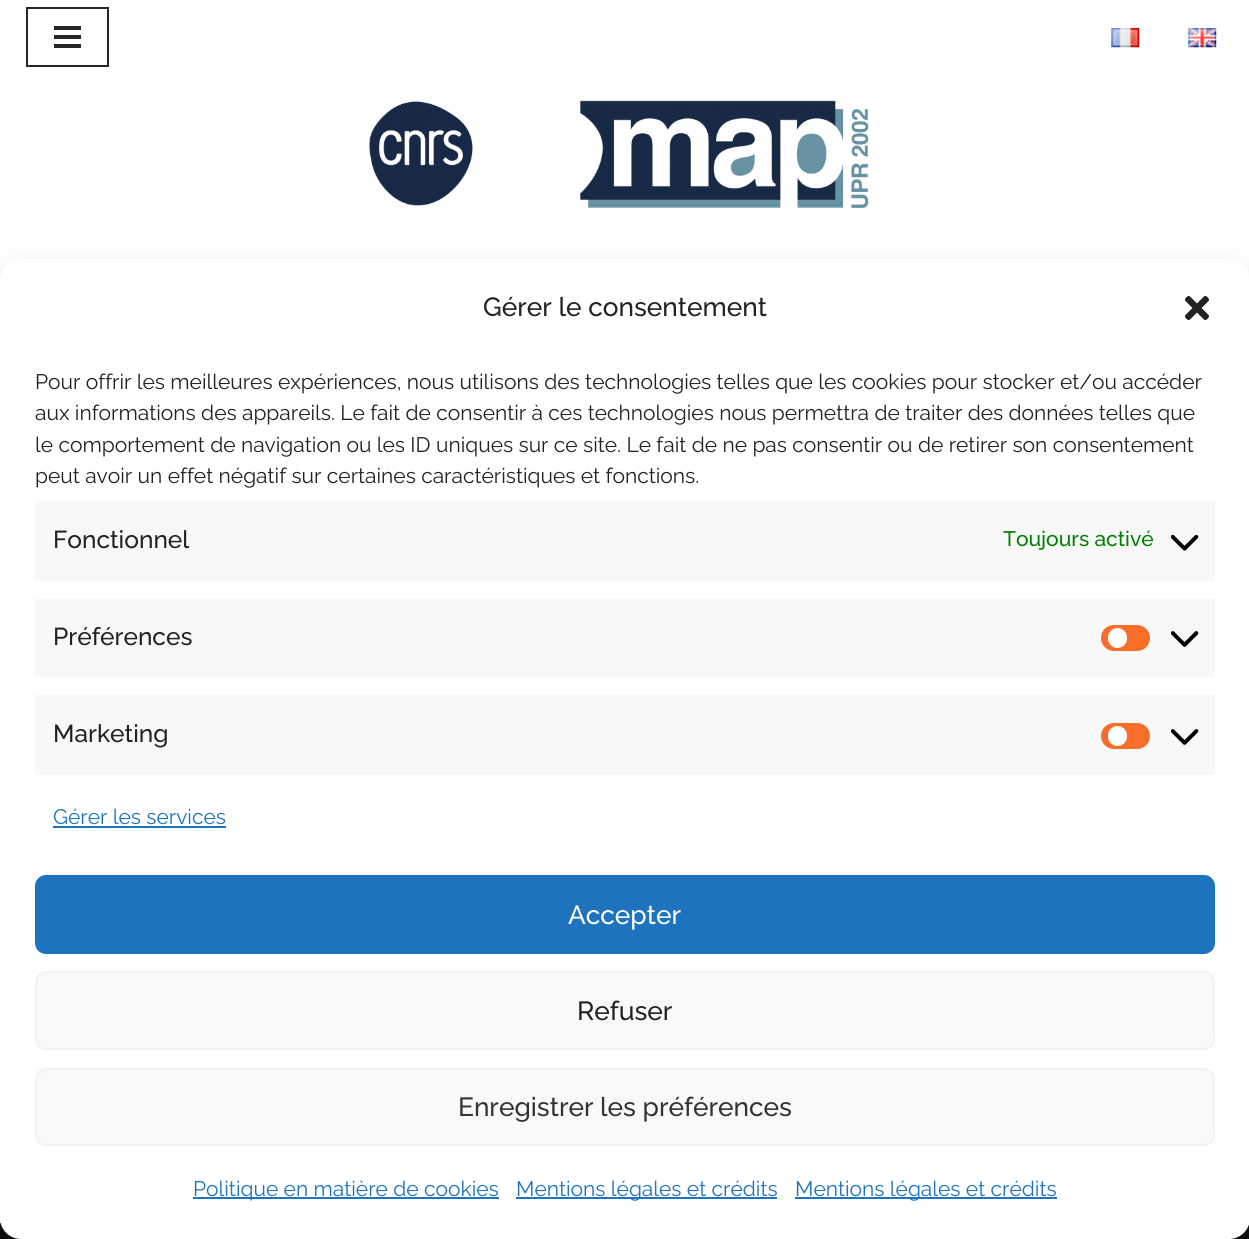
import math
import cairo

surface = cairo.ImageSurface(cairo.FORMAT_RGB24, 1249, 1239)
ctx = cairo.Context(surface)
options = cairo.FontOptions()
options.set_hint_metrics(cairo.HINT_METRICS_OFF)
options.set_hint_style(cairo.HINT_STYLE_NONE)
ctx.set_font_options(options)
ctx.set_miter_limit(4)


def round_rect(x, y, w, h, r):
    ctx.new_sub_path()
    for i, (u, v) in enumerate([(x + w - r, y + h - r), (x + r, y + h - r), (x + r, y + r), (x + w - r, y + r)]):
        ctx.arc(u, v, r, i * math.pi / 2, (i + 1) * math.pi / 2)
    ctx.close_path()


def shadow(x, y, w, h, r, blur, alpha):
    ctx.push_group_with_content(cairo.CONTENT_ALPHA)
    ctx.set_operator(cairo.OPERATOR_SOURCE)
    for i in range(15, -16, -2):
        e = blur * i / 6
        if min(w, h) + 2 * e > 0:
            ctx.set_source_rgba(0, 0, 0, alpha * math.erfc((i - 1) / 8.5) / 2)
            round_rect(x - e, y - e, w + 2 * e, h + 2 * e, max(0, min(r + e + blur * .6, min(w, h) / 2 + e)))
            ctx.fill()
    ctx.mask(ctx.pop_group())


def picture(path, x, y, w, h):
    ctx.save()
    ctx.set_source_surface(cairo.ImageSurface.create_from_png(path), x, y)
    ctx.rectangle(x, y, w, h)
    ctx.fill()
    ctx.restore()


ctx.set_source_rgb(1, 1, 1)
ctx.paint()
ctx.rectangle(27, 8, 81, 58)
ctx.set_source_rgb(0.153, 0.149, 0.149)
ctx.stroke()
ctx.rectangle(54, 26, 27, 4)
ctx.fill()
ctx.rectangle(54, 35, 27, 4)
ctx.fill()
ctx.rectangle(54, 44, 27, 4)
ctx.fill()
picture("img1.png", 1111, 28, 29, 20)
picture("img2.png", 1188, 28, 29, 20)
picture("img3.png", 369, 100, 500, 108)
ctx.set_source_rgb(0.071, 0.071, 0.071)
ctx.rectangle(0, 1223, 1249, 16)
ctx.fill()
ctx.set_source_rgb(0, 0, 0)
shadow(0, 270, 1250, 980, 21, 5, 0.23)
shadow(0, 277, 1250, 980, 21, 17.5, 0.19)
ctx.set_source_rgb(1, 1, 1)
round_rect(0, 259, 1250, 980, 21)
ctx.fill()
ctx.select_font_face("Raleway Medium")
ctx.set_font_size(26.25)
ctx.set_source_rgb(0.133, 0.133, 0.133)
ctx.move_to(483, 316)
ctx.show_text("Gérer le consentement")
picture("img4.png", 1185, 296, 24, 24)
ctx.select_font_face("Raleway")
ctx.set_font_size(21)
ctx.move_to(35, 389)
ctx.show_text("Pour offrir les meilleures expériences, nous utilisons des technologies telles que les cookies pour stocker et/ou accéder")
ctx.move_to(35, 420)
ctx.show_text("aux informations des appareils. Le fait de consentir à ces technologies nous permettra de traiter des données telles que")
ctx.move_to(35, 452)
ctx.show_text("le comportement de navigation ou les ID uniques sur ce site. Le fait de ne pas consentir ou de retirer son consentement")
ctx.move_to(35, 483)
ctx.show_text("peut avoir un effet négatif sur certaines caractéristiques et fonctions.")
ctx.set_source_rgb(0.969, 0.969, 0.969)
ctx.rectangle(35, 501, 1180, 80)
ctx.fill()
ctx.select_font_face("Raleway Medium")
ctx.set_font_size(24.5)
ctx.set_source_rgb(0.133, 0.133, 0.133)
ctx.move_to(53, 548)
ctx.show_text("Fonctionnel")
ctx.set_font_size(21)
ctx.set_source_rgb(0, 0.502, 0)
ctx.move_to(1003, 546)
ctx.show_text("Toujours activé")
picture("img5.png", 1171, 534, 28, 17)
ctx.set_source_rgb(0.969, 0.969, 0.969)
ctx.rectangle(35, 599, 1180, 78)
ctx.fill()
ctx.set_font_size(24.5)
ctx.set_source_rgb(0.133, 0.133, 0.133)
ctx.move_to(53, 645)
ctx.show_text("Préférences")
ctx.set_source_rgb(0.961, 0.431, 0.157)
round_rect(1101, 625, 49, 26, 13)
ctx.fill()
ctx.set_source_rgb(1, 1, 1)
round_rect(1108, 628, 19, 20, 9.5)
ctx.fill()
picture("img6.png", 1171, 631, 28, 16)
ctx.set_source_rgb(0.969, 0.969, 0.969)
ctx.rectangle(35, 695, 1180, 80)
ctx.fill()
ctx.set_source_rgb(0.133, 0.133, 0.133)
ctx.move_to(53, 742)
ctx.show_text("Marketing")
ctx.set_source_rgb(0.961, 0.431, 0.157)
round_rect(1101, 723, 49, 26, 13)
ctx.fill()
ctx.set_source_rgb(1, 1, 1)
round_rect(1108, 726, 19, 20, 9.5)
ctx.fill()
picture("img6.png", 1171, 729, 28, 16)
ctx.select_font_face("Raleway")
ctx.set_font_size(21)
ctx.set_source_rgb(0.118, 0.451, 0.745)
ctx.move_to(53, 824)
ctx.show_text("Gérer les services")
ctx.rectangle(53, 826, 173, 2)
ctx.fill()
round_rect(36, 876, 1178, 77, 10)
ctx.fill_preserve()
ctx.stroke()
ctx.select_font_face("Raleway Medium")
ctx.set_font_size(26.25)
ctx.set_source_rgb(1, 1, 1)
ctx.move_to(568, 924)
ctx.show_text("Accepter")
ctx.set_source_rgb(0.976, 0.976, 0.976)
round_rect(36, 972, 1178, 77, 10)
ctx.fill_preserve()
ctx.set_source_rgb(0.949, 0.949, 0.949)
ctx.stroke()
ctx.set_source_rgb(0.133, 0.133, 0.133)
ctx.move_to(577, 1020)
ctx.show_text("Refuser")
ctx.set_source_rgb(0.976, 0.976, 0.976)
round_rect(36, 1069, 1178, 76, 10)
ctx.fill_preserve()
ctx.set_source_rgb(0.949, 0.949, 0.949)
ctx.stroke()
ctx.set_source_rgb(0.2, 0.2, 0.2)
ctx.move_to(458, 1116)
ctx.show_text("Enregistrer les préférences")
ctx.set_source_rgb(0.118, 0.451, 0.745)
ctx.rectangle(193, 1197, 306, 2)
ctx.fill()
ctx.select_font_face("Raleway")
ctx.set_font_size(21)
ctx.move_to(193, 1196)
ctx.show_text("Politique en matière de cookies")
ctx.rectangle(516, 1197, 261, 2)
ctx.fill()
ctx.move_to(516, 1196)
ctx.show_text("Mentions légales et crédits")
ctx.rectangle(795, 1197, 262, 2)
ctx.fill()
ctx.move_to(795, 1196)
ctx.show_text("Mentions légales et crédits")
surface.write_to_png("page.png")
